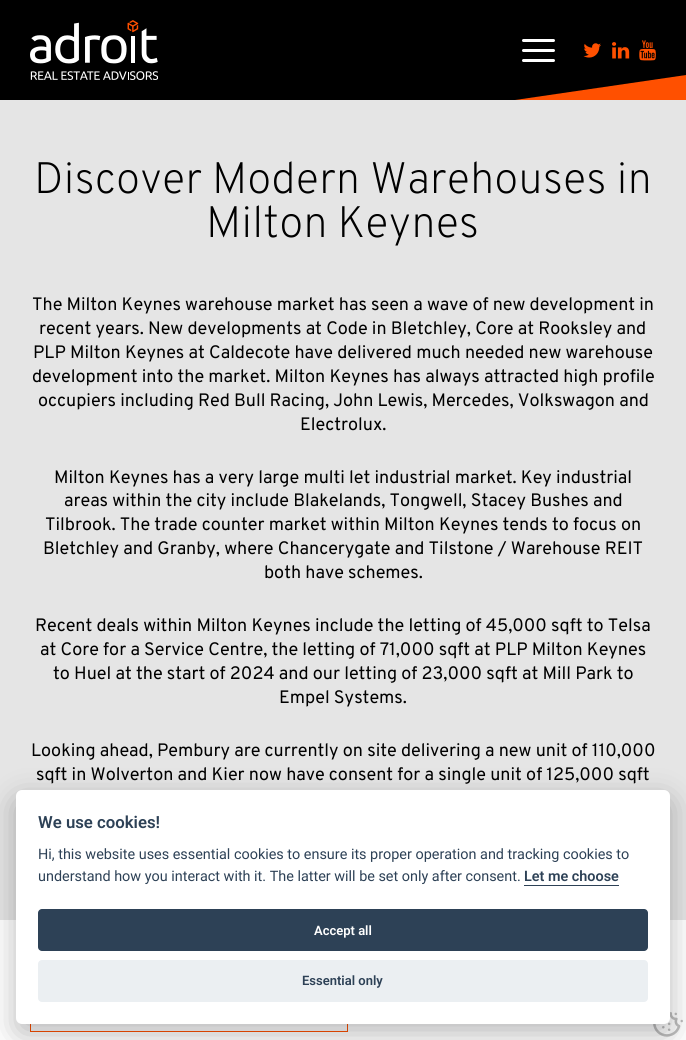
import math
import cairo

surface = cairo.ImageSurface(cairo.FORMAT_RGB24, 686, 1040)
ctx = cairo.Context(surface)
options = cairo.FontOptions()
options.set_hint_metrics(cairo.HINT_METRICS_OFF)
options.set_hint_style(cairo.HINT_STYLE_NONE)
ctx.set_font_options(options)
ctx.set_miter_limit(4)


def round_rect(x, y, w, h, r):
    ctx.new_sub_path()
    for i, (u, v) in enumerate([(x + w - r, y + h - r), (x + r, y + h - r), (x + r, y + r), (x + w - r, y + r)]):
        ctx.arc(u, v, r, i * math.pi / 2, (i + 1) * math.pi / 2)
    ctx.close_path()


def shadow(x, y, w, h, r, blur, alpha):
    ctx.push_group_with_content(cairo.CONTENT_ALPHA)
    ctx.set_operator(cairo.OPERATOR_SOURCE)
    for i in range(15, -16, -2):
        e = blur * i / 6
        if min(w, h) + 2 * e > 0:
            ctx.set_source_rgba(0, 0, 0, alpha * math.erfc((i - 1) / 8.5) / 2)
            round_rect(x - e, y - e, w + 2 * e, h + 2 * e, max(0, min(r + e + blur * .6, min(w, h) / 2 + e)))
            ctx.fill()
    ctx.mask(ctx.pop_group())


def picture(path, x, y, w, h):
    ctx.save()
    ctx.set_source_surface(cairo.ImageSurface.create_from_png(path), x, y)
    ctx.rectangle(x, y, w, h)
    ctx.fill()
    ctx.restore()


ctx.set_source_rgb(1, 1, 1)
ctx.paint()
ctx.set_source_rgb(0, 0, 0)
ctx.rectangle(0, 0, 686, 100)
ctx.fill()
picture("img1.png", 30, 20, 128, 60)
ctx.set_source_rgb(1, 1, 1)
round_rect(522, 39, 33, 3, 1.5)
ctx.fill()
round_rect(522, 49, 33, 3, 1.5)
ctx.fill()
round_rect(522, 59, 33, 3, 1.5)
ctx.fill()
picture("img2.png", 583, 43, 18, 15)
picture("img3.png", 612, 42, 18, 17)
picture("img4.png", 639, 40, 17, 21)
ctx.set_source_rgb(1, 0.314, 0)
ctx.new_path()
ctx.move_to(515, 100)
ctx.line_to(686, 100)
ctx.line_to(686, 75)
ctx.close_path()
ctx.fill()
ctx.set_source_rgb(0.898, 0.898, 0.898)
ctx.rectangle(0, 100, 686, 820)
ctx.fill()
ctx.select_font_face("Overpass ExtraLight")
ctx.set_font_size(44)
ctx.set_source_rgb(0, 0, 0)
ctx.move_to(34, 193)
ctx.show_text("Discover Modern Warehouses in")
ctx.move_to(206, 237)
ctx.show_text("Milton Keynes")
ctx.select_font_face("Overpass")
ctx.set_font_size(18)
ctx.move_to(32, 310)
ctx.show_text("The Milton Keynes warehouse market has seen a wave of new development in")
ctx.move_to(39, 334)
ctx.show_text("recent years. New developments at Code in Bletchley, Core at Rooksley and")
ctx.move_to(33, 358)
ctx.show_text("PLP Milton Keynes at Caldecote have delivered much needed new warehouse")
ctx.move_to(32, 382)
ctx.show_text("development into the market. Milton Keynes has always attracted high profile")
ctx.move_to(38, 406)
ctx.show_text("occupiers including Red Bull Racing, John Lewis, Mercedes, Volkswagon and")
ctx.move_to(300, 430)
ctx.show_text("Electrolux.")
ctx.move_to(54, 483)
ctx.show_text("Milton Keynes has a very large multi let industrial market. Key industrial")
ctx.move_to(64, 506)
ctx.show_text("areas within the city include Blakelands, Tongwell, Stacey Bushes and")
ctx.move_to(45, 530)
ctx.show_text("Tilbrook. The trade counter market within Milton Keynes tends to focus on")
ctx.move_to(43, 554)
ctx.show_text("Bletchley and Granby, where Chancerygate and Tilstone / Warehouse REIT")
ctx.move_to(264, 578)
ctx.show_text("both have schemes.")
ctx.move_to(35, 631)
ctx.show_text("Recent deals within Milton Keynes include the letting of 45,000 sqft to Telsa")
ctx.move_to(40, 655)
ctx.show_text("at Core for a Service Centre, the letting of 71,000 sqft at PLP Milton Keynes")
ctx.move_to(53, 679)
ctx.show_text("to Huel at the start of 2024 and our letting of 23,000 sqft at Mill Park to")
ctx.move_to(279, 703)
ctx.show_text("Empel Systems.")
ctx.move_to(31, 756)
ctx.show_text("Looking ahead, Pembury are currently on site delivering a new unit of 110,000")
ctx.move_to(36, 780)
ctx.show_text("sqft in Wolverton and Kier now have consent for a single unit of 125,000 sqft")
ctx.rectangle(30.5, 980.5, 317, 51)
ctx.set_source_rgb(1, 0.314, 0)
ctx.set_line_width(1)
ctx.stroke()
picture("img5.png", 653, 1012, 30, 25)
ctx.set_source_rgb(0.008, 0.008, 0.012)
shadow(16, 800, 654, 234, 6, 15, 0.28)
ctx.set_source_rgb(1, 1, 1)
round_rect(16, 790, 654, 234, 6)
ctx.fill()
ctx.select_font_face("Roboto SemiBold")
ctx.set_font_size(16.75)
ctx.set_source_rgb(0.176, 0.255, 0.337)
ctx.move_to(38, 828)
ctx.show_text("We use cookies!")
ctx.select_font_face("Roboto")
ctx.set_font_size(14.4)
ctx.move_to(38, 859)
ctx.show_text("Hi, this website uses essential cookies to ensure its proper operation and tracking cookies to")
ctx.move_to(38, 881)
ctx.show_text("understand how you interact with it. The latter will be set only after consent.")
ctx.select_font_face("Roboto SemiBold")
ctx.move_to(524, 881)
ctx.show_text("Let me choose")
ctx.rectangle(524, 885, 95, 1)
ctx.fill()
round_rect(38, 909, 610, 42, 4)
ctx.fill()
ctx.set_font_size(13)
ctx.set_source_rgb(1, 1, 1)
ctx.move_to(314, 935)
ctx.show_text("Accept all")
ctx.set_source_rgb(0.918, 0.937, 0.949)
round_rect(38, 960, 610, 42, 4)
ctx.fill()
ctx.set_source_rgb(0.176, 0.255, 0.337)
ctx.move_to(302, 985)
ctx.show_text("Essential only")
surface.write_to_png("page.png")
